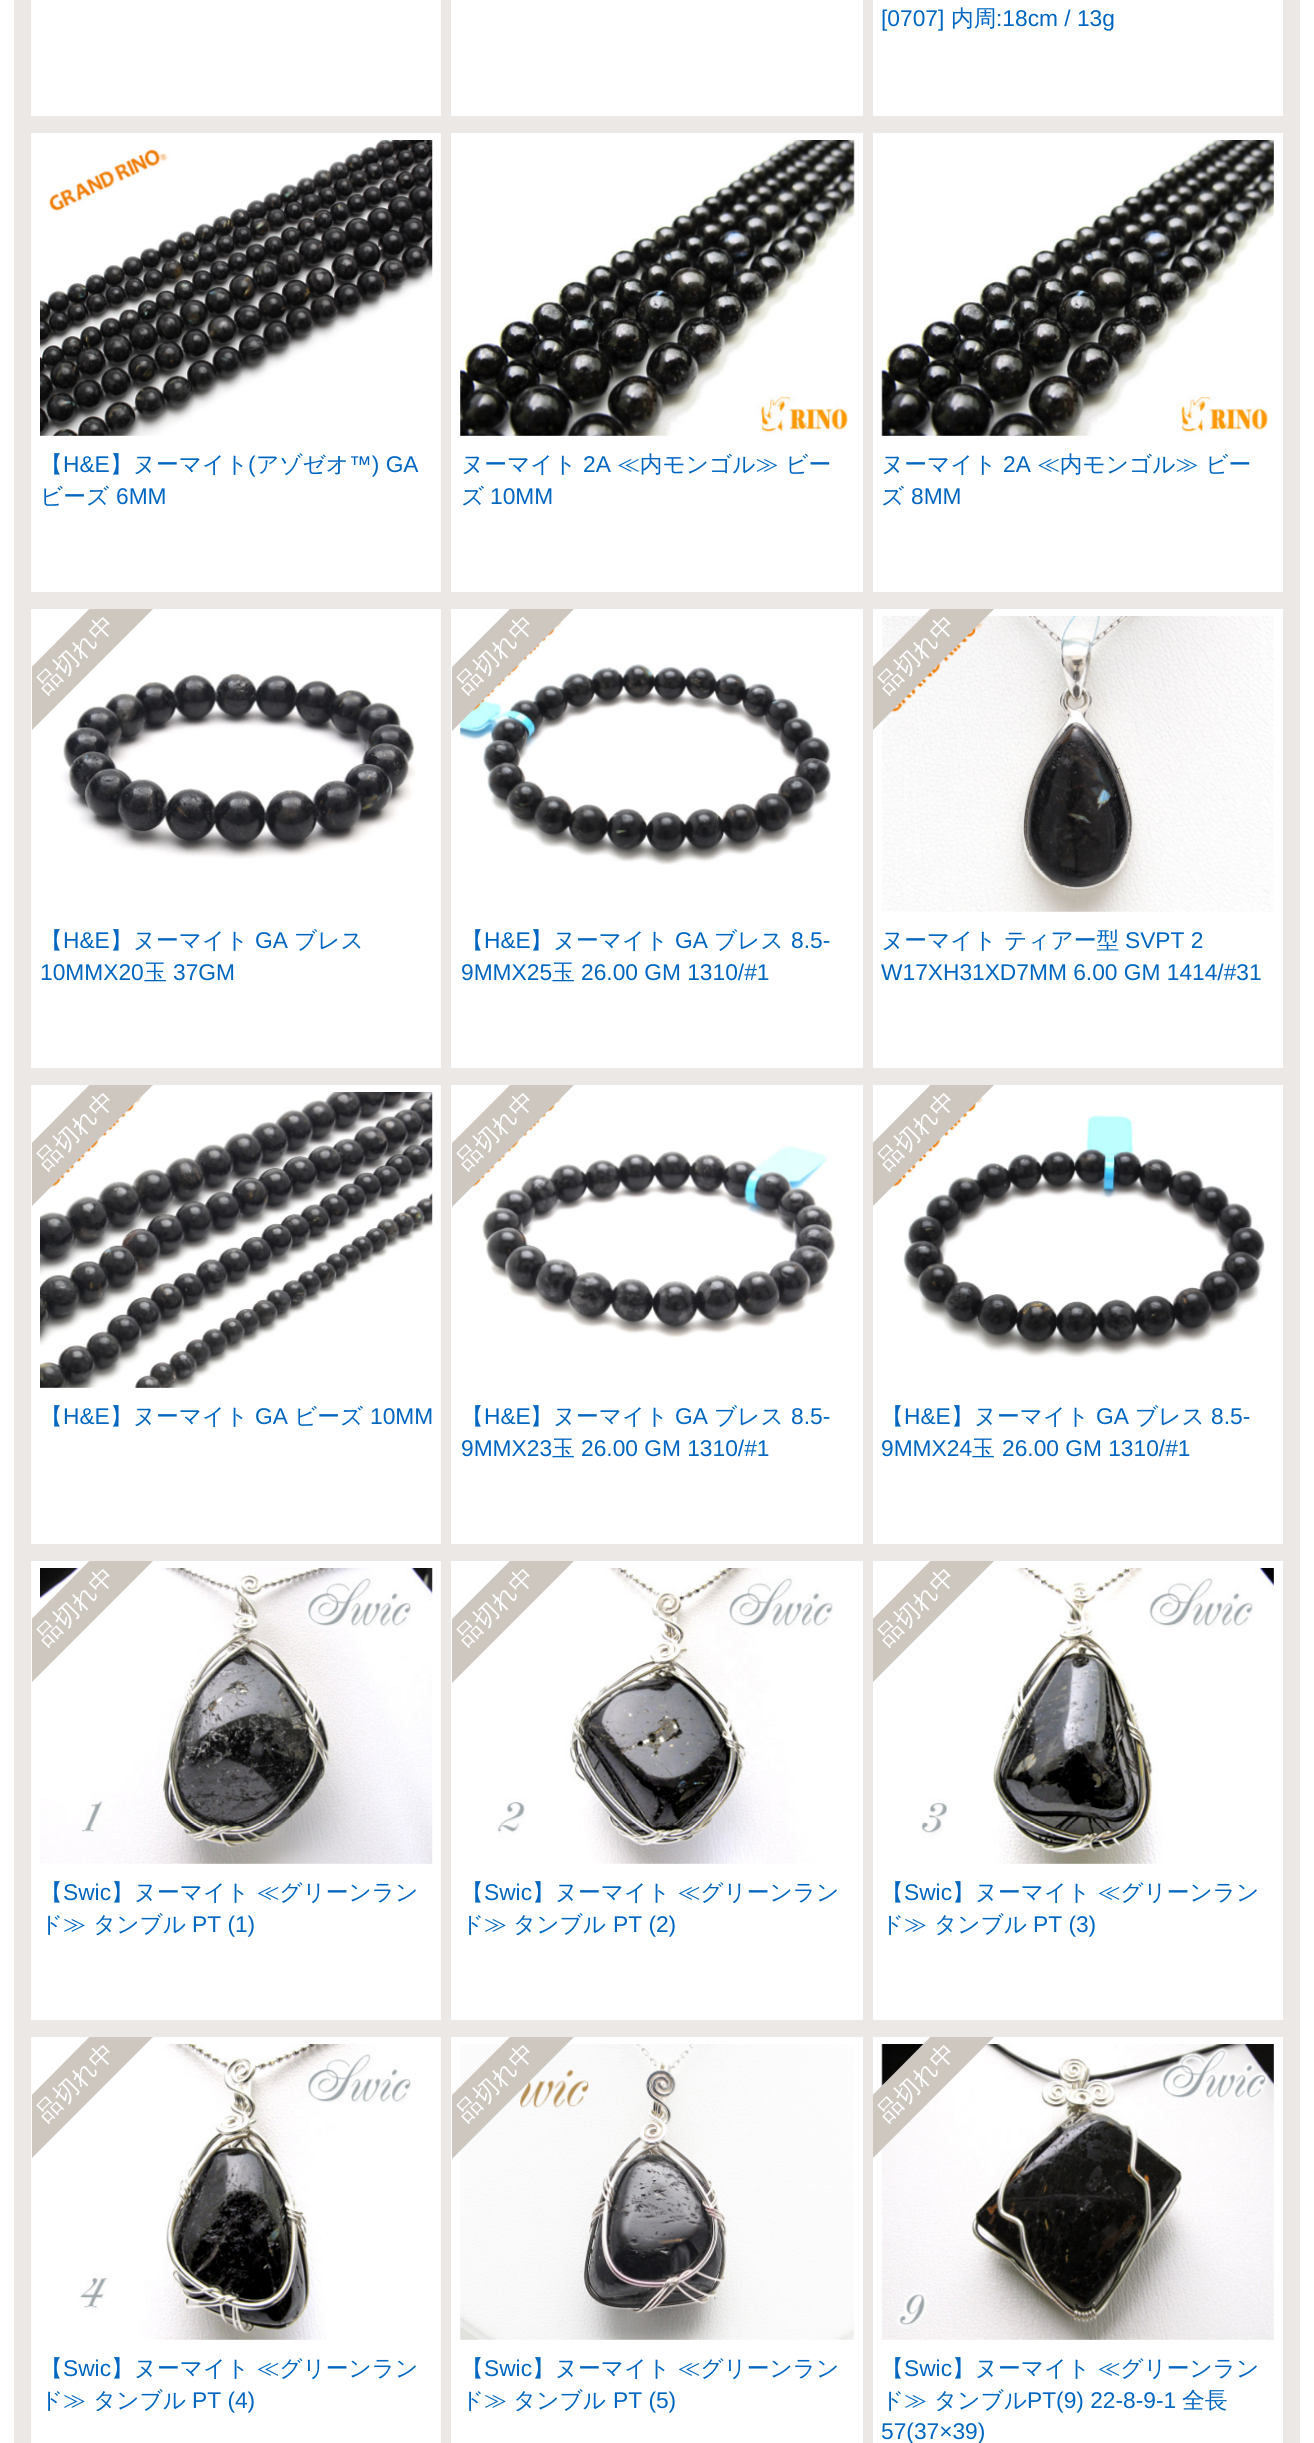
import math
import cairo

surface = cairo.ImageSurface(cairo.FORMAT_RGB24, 1314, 2443)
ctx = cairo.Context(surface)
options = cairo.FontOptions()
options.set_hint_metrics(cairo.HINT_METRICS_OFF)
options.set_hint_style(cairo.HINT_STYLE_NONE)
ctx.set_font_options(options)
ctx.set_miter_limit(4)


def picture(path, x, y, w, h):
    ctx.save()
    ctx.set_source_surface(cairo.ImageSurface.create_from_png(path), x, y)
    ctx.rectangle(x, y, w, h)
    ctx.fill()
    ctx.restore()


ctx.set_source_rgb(1, 1, 1)
ctx.paint()
ctx.set_source_rgb(0.922, 0.91, 0.898)
ctx.rectangle(14, 0, 1286, 2443)
ctx.fill()
ctx.set_source_rgb(1, 1, 1)
ctx.rectangle(31, 0, 410, 116)
ctx.fill()
ctx.rectangle(451, 0, 412, 116)
ctx.fill()
ctx.rectangle(873, 0, 410, 116)
ctx.fill()
ctx.select_font_face("Liberation Sans")
ctx.set_font_size(22.75)
ctx.set_source_rgb(0, 0.4, 0.753)
ctx.move_to(881, 26)
ctx.show_text("[0707]")
ctx.select_font_face("WenQuanYi Zen Hei Medium")
ctx.move_to(951, 26)
ctx.show_text("内周")
ctx.select_font_face("Liberation Sans")
ctx.move_to(996, 26)
ctx.show_text(":18cm / 13g")
ctx.set_source_rgb(1, 1, 1)
ctx.rectangle(31, 133, 410, 459)
ctx.fill()
picture("img1.png", 40, 140, 393, 296)
ctx.select_font_face("WenQuanYi Zen Hei Medium")
ctx.set_source_rgb(0, 0.4, 0.753)
ctx.move_to(40, 472)
ctx.show_text("【")
ctx.select_font_face("Liberation Sans")
ctx.move_to(63, 472)
ctx.show_text("H&E")
ctx.select_font_face("WenQuanYi Zen Hei Medium")
ctx.move_to(110, 472)
ctx.show_text("】ヌーマイト")
ctx.select_font_face("Liberation Sans")
ctx.move_to(248, 472)
ctx.show_text("(")
ctx.select_font_face("WenQuanYi Zen Hei Medium")
ctx.move_to(256, 472)
ctx.show_text("アゾゼオ")
ctx.select_font_face("Liberation Sans")
ctx.move_to(349, 472)
ctx.show_text("™) GA")
ctx.select_font_face("WenQuanYi Zen Hei Medium")
ctx.move_to(40, 504)
ctx.show_text("ビーズ")
ctx.select_font_face("Liberation Sans")
ctx.move_to(116, 504)
ctx.show_text("6MM")
ctx.set_source_rgb(1, 1, 1)
ctx.rectangle(451, 133, 412, 459)
ctx.fill()
picture("img2.png", 460, 140, 395, 296)
ctx.select_font_face("WenQuanYi Zen Hei Medium")
ctx.set_source_rgb(0, 0.4, 0.753)
ctx.move_to(461, 472)
ctx.show_text("ヌーマイト")
ctx.select_font_face("Liberation Sans")
ctx.move_to(583, 472)
ctx.show_text("2A")
ctx.select_font_face("WenQuanYi Zen Hei Medium")
ctx.move_to(617, 472)
ctx.show_text("≪内モンゴル≫ ビー")
ctx.move_to(461, 504)
ctx.show_text("ズ")
ctx.select_font_face("Liberation Sans")
ctx.move_to(490, 504)
ctx.show_text("10MM")
ctx.set_source_rgb(1, 1, 1)
ctx.rectangle(873, 133, 410, 459)
ctx.fill()
picture("img3.png", 881, 140, 393, 296)
ctx.select_font_face("WenQuanYi Zen Hei Medium")
ctx.set_source_rgb(0, 0.4, 0.753)
ctx.move_to(881, 472)
ctx.show_text("ヌーマイト")
ctx.select_font_face("Liberation Sans")
ctx.move_to(1003, 472)
ctx.show_text("2A")
ctx.select_font_face("WenQuanYi Zen Hei Medium")
ctx.move_to(1037, 472)
ctx.show_text("≪内モンゴル≫ ビー")
ctx.move_to(881, 504)
ctx.show_text("ズ")
ctx.select_font_face("Liberation Sans")
ctx.move_to(911, 504)
ctx.show_text("8MM")
ctx.set_source_rgb(1, 1, 1)
ctx.rectangle(31, 609, 410, 459)
ctx.fill()
picture("img4.png", 43, 616, 373, 243)
ctx.save()
ctx.rectangle(32, 609, 409, 459)
ctx.clip()
ctx.set_source_rgb(0.808, 0.78, 0.753)
ctx.new_path()
ctx.move_to(-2, 701)
ctx.line_to(121, 577)
ctx.line_to(153, 609)
ctx.line_to(29, 733)
ctx.close_path()
ctx.fill()
ctx.restore()
ctx.select_font_face("WenQuanYi Zen Hei Medium")
ctx.set_font_size(24.5)
ctx.save()
ctx.translate(46, 695)
ctx.rotate(-45 * math.pi / 180)
ctx.move_to(0, 0)
ctx.show_text("品切れ中")
ctx.restore()
ctx.set_font_size(22.75)
ctx.set_source_rgb(0, 0.4, 0.753)
ctx.move_to(40, 948)
ctx.show_text("【")
ctx.select_font_face("Liberation Sans")
ctx.move_to(63, 948)
ctx.show_text("H&E")
ctx.select_font_face("WenQuanYi Zen Hei Medium")
ctx.move_to(110, 948)
ctx.show_text("】ヌーマイト")
ctx.select_font_face("Liberation Sans")
ctx.move_to(255, 948)
ctx.show_text("GA")
ctx.select_font_face("WenQuanYi Zen Hei Medium")
ctx.move_to(294, 948)
ctx.show_text("ブレス")
ctx.select_font_face("Liberation Sans")
ctx.move_to(40, 980)
ctx.show_text("10MMX20")
ctx.select_font_face("WenQuanYi Zen Hei Medium")
ctx.move_to(144, 980)
ctx.show_text("玉")
ctx.select_font_face("Liberation Sans")
ctx.move_to(173, 980)
ctx.show_text("37GM")
ctx.set_source_rgb(1, 1, 1)
ctx.rectangle(451, 609, 412, 459)
ctx.fill()
picture("img5.png", 460, 620, 371, 245)
ctx.save()
ctx.rectangle(452, 609, 411, 459)
ctx.clip()
ctx.set_source_rgb(0.808, 0.78, 0.753)
ctx.new_path()
ctx.move_to(418, 701)
ctx.line_to(542, 577)
ctx.line_to(574, 609)
ctx.line_to(450, 733)
ctx.close_path()
ctx.fill()
ctx.restore()
ctx.select_font_face("WenQuanYi Zen Hei Medium")
ctx.set_font_size(24.5)
ctx.save()
ctx.translate(466, 695)
ctx.rotate(-45 * math.pi / 180)
ctx.move_to(0, 0)
ctx.show_text("品切れ中")
ctx.restore()
ctx.set_font_size(22.75)
ctx.set_source_rgb(0, 0.4, 0.753)
ctx.move_to(461, 948)
ctx.show_text("【")
ctx.select_font_face("Liberation Sans")
ctx.move_to(484, 948)
ctx.show_text("H&E")
ctx.select_font_face("WenQuanYi Zen Hei Medium")
ctx.move_to(530, 948)
ctx.show_text("】ヌーマイト")
ctx.select_font_face("Liberation Sans")
ctx.move_to(675, 948)
ctx.show_text("GA")
ctx.select_font_face("WenQuanYi Zen Hei Medium")
ctx.move_to(714, 948)
ctx.show_text("ブレス")
ctx.select_font_face("Liberation Sans")
ctx.move_to(791, 948)
ctx.show_text("8.5-")
ctx.move_to(461, 980)
ctx.show_text("9MMX25")
ctx.select_font_face("WenQuanYi Zen Hei Medium")
ctx.move_to(552, 980)
ctx.show_text("玉")
ctx.select_font_face("Liberation Sans")
ctx.move_to(581, 980)
ctx.show_text("26.00 GM 1310/#1")
ctx.set_source_rgb(1, 1, 1)
ctx.rectangle(873, 609, 410, 459)
ctx.fill()
picture("img6.png", 882, 616, 392, 296)
ctx.save()
ctx.rectangle(873, 609, 410, 459)
ctx.clip()
ctx.set_source_rgb(0.808, 0.78, 0.753)
ctx.new_path()
ctx.move_to(839, 701)
ctx.line_to(962, 577)
ctx.line_to(994, 609)
ctx.line_to(870, 733)
ctx.close_path()
ctx.fill()
ctx.restore()
ctx.select_font_face("WenQuanYi Zen Hei Medium")
ctx.set_font_size(24.5)
ctx.save()
ctx.translate(887, 695)
ctx.rotate(-45 * math.pi / 180)
ctx.move_to(0, 0)
ctx.show_text("品切れ中")
ctx.restore()
ctx.set_font_size(22.75)
ctx.set_source_rgb(0, 0.4, 0.753)
ctx.move_to(881, 948)
ctx.show_text("ヌーマイト")
ctx.move_to(1004, 948)
ctx.show_text("ティアー型")
ctx.select_font_face("Liberation Sans")
ctx.move_to(1125, 948)
ctx.show_text("SVPT 2")
ctx.move_to(881, 980)
ctx.show_text("W17XH31XD7MM 6.00 GM 1414/#31")
ctx.set_source_rgb(1, 1, 1)
ctx.rectangle(31, 1085, 410, 459)
ctx.fill()
picture("img7.png", 40, 1092, 393, 296)
ctx.save()
ctx.rectangle(32, 1085, 409, 459)
ctx.clip()
ctx.set_source_rgb(0.808, 0.78, 0.753)
ctx.new_path()
ctx.move_to(-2, 1177)
ctx.line_to(121, 1053)
ctx.line_to(153, 1085)
ctx.line_to(29, 1209)
ctx.close_path()
ctx.fill()
ctx.restore()
ctx.select_font_face("WenQuanYi Zen Hei Medium")
ctx.set_font_size(24.5)
ctx.save()
ctx.translate(46, 1171)
ctx.rotate(-45 * math.pi / 180)
ctx.move_to(0, 0)
ctx.show_text("品切れ中")
ctx.restore()
ctx.set_font_size(22.75)
ctx.set_source_rgb(0, 0.4, 0.753)
ctx.move_to(40, 1424)
ctx.show_text("【")
ctx.select_font_face("Liberation Sans")
ctx.move_to(63, 1424)
ctx.show_text("H&E")
ctx.select_font_face("WenQuanYi Zen Hei Medium")
ctx.move_to(110, 1424)
ctx.show_text("】ヌーマイト")
ctx.select_font_face("Liberation Sans")
ctx.move_to(255, 1424)
ctx.show_text("GA")
ctx.select_font_face("WenQuanYi Zen Hei Medium")
ctx.move_to(294, 1424)
ctx.show_text("ビーズ")
ctx.select_font_face("Liberation Sans")
ctx.move_to(370, 1424)
ctx.show_text("10MM")
ctx.set_source_rgb(1, 1, 1)
ctx.rectangle(451, 1085, 412, 459)
ctx.fill()
picture("img8.png", 464, 1096, 372, 242)
ctx.save()
ctx.rectangle(452, 1085, 411, 459)
ctx.clip()
ctx.set_source_rgb(0.808, 0.78, 0.753)
ctx.new_path()
ctx.move_to(418, 1177)
ctx.line_to(542, 1053)
ctx.line_to(574, 1085)
ctx.line_to(450, 1209)
ctx.close_path()
ctx.fill()
ctx.restore()
ctx.select_font_face("WenQuanYi Zen Hei Medium")
ctx.set_font_size(24.5)
ctx.save()
ctx.translate(466, 1171)
ctx.rotate(-45 * math.pi / 180)
ctx.move_to(0, 0)
ctx.show_text("品切れ中")
ctx.restore()
ctx.set_font_size(22.75)
ctx.set_source_rgb(0, 0.4, 0.753)
ctx.move_to(461, 1424)
ctx.show_text("【")
ctx.select_font_face("Liberation Sans")
ctx.move_to(484, 1424)
ctx.show_text("H&E")
ctx.select_font_face("WenQuanYi Zen Hei Medium")
ctx.move_to(530, 1424)
ctx.show_text("】ヌーマイト")
ctx.select_font_face("Liberation Sans")
ctx.move_to(675, 1424)
ctx.show_text("GA")
ctx.select_font_face("WenQuanYi Zen Hei Medium")
ctx.move_to(714, 1424)
ctx.show_text("ブレス")
ctx.select_font_face("Liberation Sans")
ctx.move_to(791, 1424)
ctx.show_text("8.5-")
ctx.move_to(461, 1456)
ctx.show_text("9MMX23")
ctx.select_font_face("WenQuanYi Zen Hei Medium")
ctx.move_to(552, 1456)
ctx.show_text("玉")
ctx.select_font_face("Liberation Sans")
ctx.move_to(581, 1456)
ctx.show_text("26.00 GM 1310/#1")
ctx.set_source_rgb(1, 1, 1)
ctx.rectangle(873, 1085, 410, 459)
ctx.fill()
picture("img9.png", 886, 1096, 379, 261)
ctx.save()
ctx.rectangle(873, 1085, 410, 459)
ctx.clip()
ctx.set_source_rgb(0.808, 0.78, 0.753)
ctx.new_path()
ctx.move_to(839, 1177)
ctx.line_to(962, 1053)
ctx.line_to(994, 1085)
ctx.line_to(870, 1209)
ctx.close_path()
ctx.fill()
ctx.restore()
ctx.select_font_face("WenQuanYi Zen Hei Medium")
ctx.set_font_size(24.5)
ctx.save()
ctx.translate(887, 1171)
ctx.rotate(-45 * math.pi / 180)
ctx.move_to(0, 0)
ctx.show_text("品切れ中")
ctx.restore()
ctx.set_font_size(22.75)
ctx.set_source_rgb(0, 0.4, 0.753)
ctx.move_to(881, 1424)
ctx.show_text("【")
ctx.select_font_face("Liberation Sans")
ctx.move_to(904, 1424)
ctx.show_text("H&E")
ctx.select_font_face("WenQuanYi Zen Hei Medium")
ctx.move_to(951, 1424)
ctx.show_text("】ヌーマイト")
ctx.select_font_face("Liberation Sans")
ctx.move_to(1096, 1424)
ctx.show_text("GA")
ctx.select_font_face("WenQuanYi Zen Hei Medium")
ctx.move_to(1135, 1424)
ctx.show_text("ブレス")
ctx.select_font_face("Liberation Sans")
ctx.move_to(1211, 1424)
ctx.show_text("8.5-")
ctx.move_to(881, 1456)
ctx.show_text("9MMX24")
ctx.select_font_face("WenQuanYi Zen Hei Medium")
ctx.move_to(972, 1456)
ctx.show_text("玉")
ctx.select_font_face("Liberation Sans")
ctx.move_to(1002, 1456)
ctx.show_text("26.00 GM 1310/#1")
ctx.set_source_rgb(1, 1, 1)
ctx.rectangle(31, 1561, 410, 459)
ctx.fill()
picture("img10.png", 40, 1568, 393, 296)
ctx.save()
ctx.rectangle(32, 1561, 409, 459)
ctx.clip()
ctx.set_source_rgb(0.808, 0.78, 0.753)
ctx.new_path()
ctx.move_to(-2, 1653)
ctx.line_to(121, 1529)
ctx.line_to(153, 1561)
ctx.line_to(29, 1685)
ctx.close_path()
ctx.fill()
ctx.restore()
ctx.select_font_face("WenQuanYi Zen Hei Medium")
ctx.set_font_size(24.5)
ctx.save()
ctx.translate(46, 1647)
ctx.rotate(-45 * math.pi / 180)
ctx.move_to(0, 0)
ctx.show_text("品切れ中")
ctx.restore()
ctx.set_font_size(22.75)
ctx.set_source_rgb(0, 0.4, 0.753)
ctx.move_to(40, 1900)
ctx.show_text("【")
ctx.select_font_face("Liberation Sans")
ctx.move_to(63, 1900)
ctx.show_text("Swic")
ctx.select_font_face("WenQuanYi Zen Hei Medium")
ctx.move_to(111, 1900)
ctx.show_text("】ヌーマイト ≪グリーンラン")
ctx.move_to(40, 1932)
ctx.show_text("ド≫")
ctx.move_to(93, 1932)
ctx.show_text("タンブル")
ctx.select_font_face("Liberation Sans")
ctx.move_to(192, 1932)
ctx.show_text("PT (1)")
ctx.set_source_rgb(1, 1, 1)
ctx.rectangle(451, 1561, 412, 459)
ctx.fill()
picture("img11.png", 497, 1568, 336, 296)
ctx.save()
ctx.rectangle(452, 1561, 411, 459)
ctx.clip()
ctx.set_source_rgb(0.808, 0.78, 0.753)
ctx.new_path()
ctx.move_to(418, 1653)
ctx.line_to(542, 1529)
ctx.line_to(574, 1561)
ctx.line_to(450, 1685)
ctx.close_path()
ctx.fill()
ctx.restore()
ctx.select_font_face("WenQuanYi Zen Hei Medium")
ctx.set_font_size(24.5)
ctx.save()
ctx.translate(466, 1647)
ctx.rotate(-45 * math.pi / 180)
ctx.move_to(0, 0)
ctx.show_text("品切れ中")
ctx.restore()
ctx.set_font_size(22.75)
ctx.set_source_rgb(0, 0.4, 0.753)
ctx.move_to(461, 1900)
ctx.show_text("【")
ctx.select_font_face("Liberation Sans")
ctx.move_to(484, 1900)
ctx.show_text("Swic")
ctx.select_font_face("WenQuanYi Zen Hei Medium")
ctx.move_to(532, 1900)
ctx.show_text("】ヌーマイト ≪グリーンラン")
ctx.move_to(461, 1932)
ctx.show_text("ド≫")
ctx.move_to(513, 1932)
ctx.show_text("タンブル")
ctx.select_font_face("Liberation Sans")
ctx.move_to(613, 1932)
ctx.show_text("PT (2)")
ctx.set_source_rgb(1, 1, 1)
ctx.rectangle(873, 1561, 410, 459)
ctx.fill()
picture("img12.png", 921, 1568, 353, 296)
ctx.save()
ctx.rectangle(873, 1561, 410, 459)
ctx.clip()
ctx.set_source_rgb(0.808, 0.78, 0.753)
ctx.new_path()
ctx.move_to(839, 1653)
ctx.line_to(962, 1529)
ctx.line_to(994, 1561)
ctx.line_to(870, 1685)
ctx.close_path()
ctx.fill()
ctx.restore()
ctx.select_font_face("WenQuanYi Zen Hei Medium")
ctx.set_font_size(24.5)
ctx.save()
ctx.translate(887, 1647)
ctx.rotate(-45 * math.pi / 180)
ctx.move_to(0, 0)
ctx.show_text("品切れ中")
ctx.restore()
ctx.set_font_size(22.75)
ctx.set_source_rgb(0, 0.4, 0.753)
ctx.move_to(881, 1900)
ctx.show_text("【")
ctx.select_font_face("Liberation Sans")
ctx.move_to(904, 1900)
ctx.show_text("Swic")
ctx.select_font_face("WenQuanYi Zen Hei Medium")
ctx.move_to(952, 1900)
ctx.show_text("】ヌーマイト ≪グリーンラン")
ctx.move_to(881, 1932)
ctx.show_text("ド≫")
ctx.move_to(934, 1932)
ctx.show_text("タンブル")
ctx.select_font_face("Liberation Sans")
ctx.move_to(1033, 1932)
ctx.show_text("PT (3)")
ctx.set_source_rgb(1, 1, 1)
ctx.rectangle(31, 2037, 410, 406)
ctx.fill()
picture("img13.png", 79, 2044, 332, 296)
ctx.save()
ctx.rectangle(32, 2037, 409, 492)
ctx.clip()
ctx.set_source_rgb(0.808, 0.78, 0.753)
ctx.new_path()
ctx.move_to(-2, 2129)
ctx.line_to(121, 2005)
ctx.line_to(153, 2037)
ctx.line_to(29, 2161)
ctx.close_path()
ctx.fill()
ctx.restore()
ctx.select_font_face("WenQuanYi Zen Hei Medium")
ctx.set_font_size(24.5)
ctx.save()
ctx.translate(46, 2123)
ctx.rotate(-45 * math.pi / 180)
ctx.move_to(0, 0)
ctx.show_text("品切れ中")
ctx.restore()
ctx.set_font_size(22.75)
ctx.set_source_rgb(0, 0.4, 0.753)
ctx.move_to(40, 2376)
ctx.show_text("【")
ctx.select_font_face("Liberation Sans")
ctx.move_to(63, 2376)
ctx.show_text("Swic")
ctx.select_font_face("WenQuanYi Zen Hei Medium")
ctx.move_to(111, 2376)
ctx.show_text("】ヌーマイト ≪グリーンラン")
ctx.move_to(40, 2408)
ctx.show_text("ド≫")
ctx.move_to(93, 2408)
ctx.show_text("タンブル")
ctx.select_font_face("Liberation Sans")
ctx.move_to(192, 2408)
ctx.show_text("PT (4)")
ctx.set_source_rgb(1, 1, 1)
ctx.rectangle(451, 2037, 412, 406)
ctx.fill()
picture("img14.png", 460, 2044, 394, 296)
ctx.save()
ctx.rectangle(452, 2037, 411, 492)
ctx.clip()
ctx.set_source_rgb(0.808, 0.78, 0.753)
ctx.new_path()
ctx.move_to(418, 2129)
ctx.line_to(542, 2005)
ctx.line_to(574, 2037)
ctx.line_to(450, 2161)
ctx.close_path()
ctx.fill()
ctx.restore()
ctx.select_font_face("WenQuanYi Zen Hei Medium")
ctx.set_font_size(24.5)
ctx.save()
ctx.translate(466, 2123)
ctx.rotate(-45 * math.pi / 180)
ctx.move_to(0, 0)
ctx.show_text("品切れ中")
ctx.restore()
ctx.set_font_size(22.75)
ctx.set_source_rgb(0, 0.4, 0.753)
ctx.move_to(461, 2376)
ctx.show_text("【")
ctx.select_font_face("Liberation Sans")
ctx.move_to(484, 2376)
ctx.show_text("Swic")
ctx.select_font_face("WenQuanYi Zen Hei Medium")
ctx.move_to(532, 2376)
ctx.show_text("】ヌーマイト ≪グリーンラン")
ctx.move_to(461, 2408)
ctx.show_text("ド≫")
ctx.move_to(513, 2408)
ctx.show_text("タンブル")
ctx.select_font_face("Liberation Sans")
ctx.move_to(613, 2408)
ctx.show_text("PT (5)")
ctx.set_source_rgb(1, 1, 1)
ctx.rectangle(873, 2037, 410, 406)
ctx.fill()
picture("img15.png", 881, 2044, 393, 296)
ctx.save()
ctx.rectangle(873, 2037, 410, 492)
ctx.clip()
ctx.set_source_rgb(0.808, 0.78, 0.753)
ctx.new_path()
ctx.move_to(839, 2129)
ctx.line_to(962, 2005)
ctx.line_to(994, 2037)
ctx.line_to(870, 2161)
ctx.close_path()
ctx.fill()
ctx.restore()
ctx.select_font_face("WenQuanYi Zen Hei Medium")
ctx.set_font_size(24.5)
ctx.save()
ctx.translate(887, 2123)
ctx.rotate(-45 * math.pi / 180)
ctx.move_to(0, 0)
ctx.show_text("品切れ中")
ctx.restore()
ctx.set_font_size(22.75)
ctx.set_source_rgb(0, 0.4, 0.753)
ctx.move_to(881, 2376)
ctx.show_text("【")
ctx.select_font_face("Liberation Sans")
ctx.move_to(904, 2376)
ctx.show_text("Swic")
ctx.select_font_face("WenQuanYi Zen Hei Medium")
ctx.move_to(952, 2376)
ctx.show_text("】ヌーマイト ≪グリーンラン")
ctx.move_to(881, 2408)
ctx.show_text("ド≫")
ctx.move_to(934, 2408)
ctx.show_text("タンブル")
ctx.select_font_face("Liberation Sans")
ctx.move_to(1027, 2408)
ctx.show_text("PT(9) 22-8-9-1")
ctx.select_font_face("WenQuanYi Zen Hei Medium")
ctx.move_to(1182, 2408)
ctx.show_text("全長")
ctx.select_font_face("Liberation Sans")
ctx.move_to(881, 2439)
ctx.show_text("57(37×39)")
surface.write_to_png("page.png")
